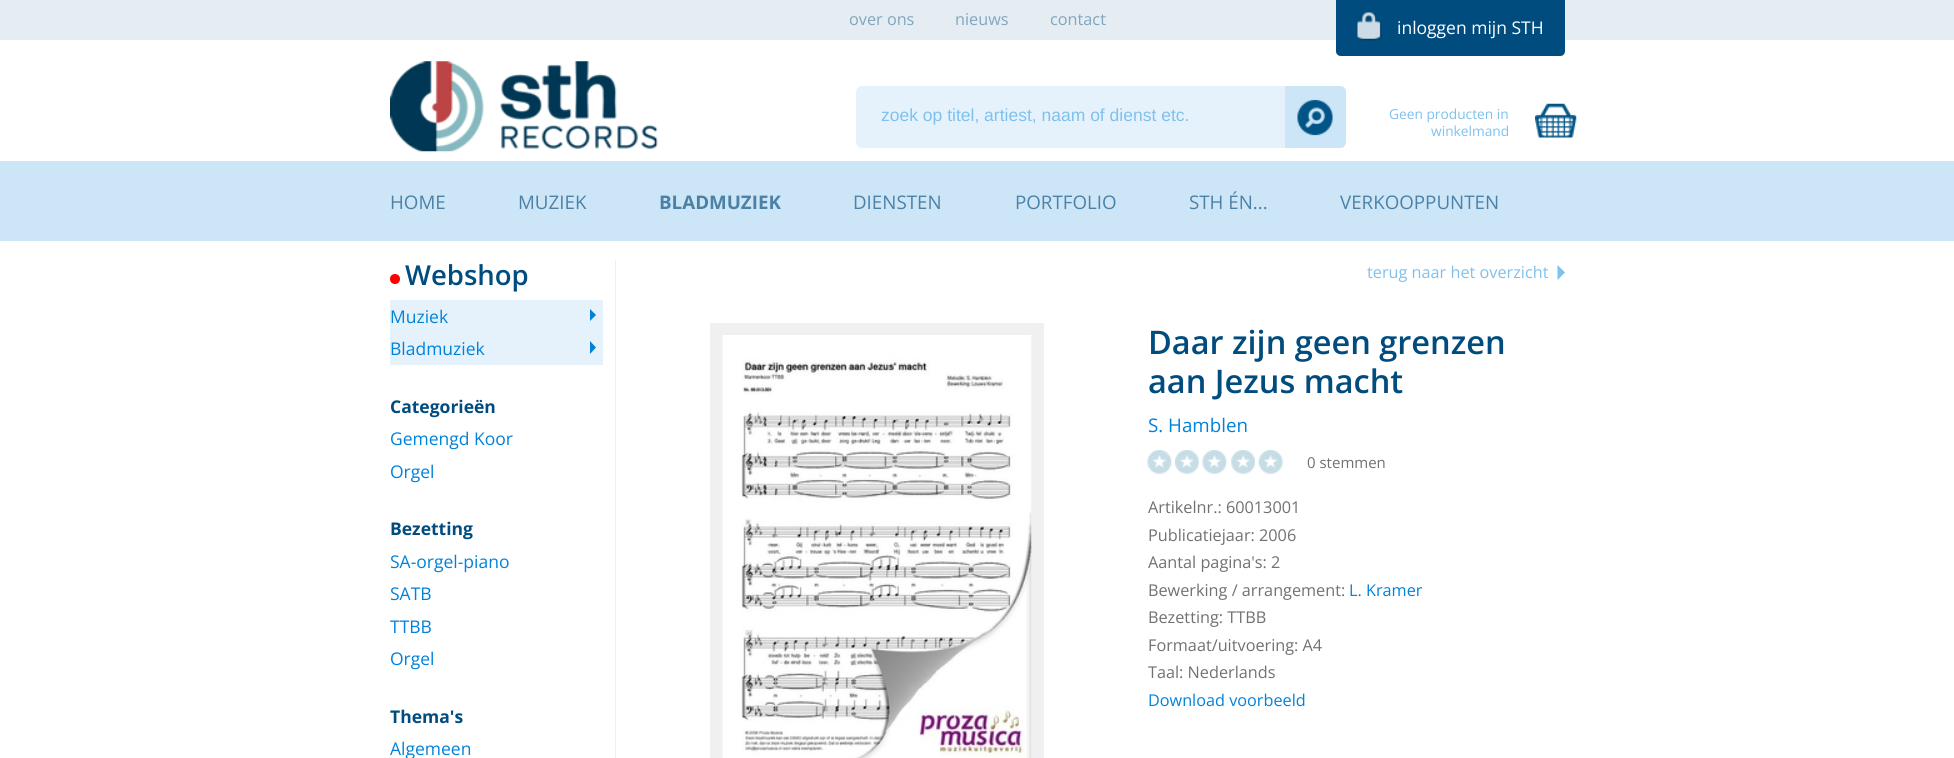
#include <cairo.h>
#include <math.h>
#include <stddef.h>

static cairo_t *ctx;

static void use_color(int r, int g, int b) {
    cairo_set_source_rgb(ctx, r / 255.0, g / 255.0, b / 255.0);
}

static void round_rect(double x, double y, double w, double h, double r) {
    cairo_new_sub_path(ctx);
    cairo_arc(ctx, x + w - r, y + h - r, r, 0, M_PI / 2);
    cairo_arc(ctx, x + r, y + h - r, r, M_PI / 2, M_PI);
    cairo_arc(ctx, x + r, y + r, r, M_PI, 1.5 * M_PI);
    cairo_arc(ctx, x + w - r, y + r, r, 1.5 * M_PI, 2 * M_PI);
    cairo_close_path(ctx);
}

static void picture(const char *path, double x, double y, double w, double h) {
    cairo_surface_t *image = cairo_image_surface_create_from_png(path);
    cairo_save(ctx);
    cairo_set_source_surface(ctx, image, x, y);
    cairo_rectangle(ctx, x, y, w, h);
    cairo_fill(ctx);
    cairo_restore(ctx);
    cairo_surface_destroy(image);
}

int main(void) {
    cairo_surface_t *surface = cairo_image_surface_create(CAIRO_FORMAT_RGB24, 1954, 758);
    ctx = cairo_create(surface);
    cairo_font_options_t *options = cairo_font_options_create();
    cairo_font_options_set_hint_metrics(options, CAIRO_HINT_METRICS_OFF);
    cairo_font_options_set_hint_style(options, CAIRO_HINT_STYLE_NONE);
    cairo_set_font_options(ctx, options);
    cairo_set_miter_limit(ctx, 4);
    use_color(255, 255, 255);
    cairo_paint(ctx);
    use_color(229, 237, 242);
    cairo_rectangle(ctx, 0, 0, 1954, 40);
    cairo_fill(ctx);
    cairo_select_font_face(ctx, "Open Sans", CAIRO_FONT_SLANT_NORMAL, CAIRO_FONT_WEIGHT_NORMAL);
    cairo_set_font_size(ctx, 16.25);
    use_color(127, 165, 191);
    cairo_move_to(ctx, 849, 25);
    cairo_show_text(ctx, "over ons");
    cairo_move_to(ctx, 955, 25);
    cairo_show_text(ctx, "nieuws");
    cairo_move_to(ctx, 1050, 25);
    cairo_show_text(ctx, "contact");
    use_color(0, 76, 127);
    cairo_new_path(ctx);
    cairo_move_to(ctx, 1336, 0);
    cairo_line_to(ctx, 1565, 0);
    cairo_line_to(ctx, 1565, 51);
    cairo_curve_to(ctx, 1565, 54, 1563, 56, 1560, 56);
    cairo_line_to(ctx, 1341, 56);
    cairo_curve_to(ctx, 1338, 56, 1336, 54, 1336, 51);
    cairo_close_path(ctx);
    cairo_fill(ctx);
    picture("img1.png", 1357, 12, 25, 29);
    cairo_set_font_size(ctx, 17.5);
    use_color(255, 255, 255);
    cairo_move_to(ctx, 1397, 34);
    cairo_show_text(ctx, "inloggen mijn STH");
    picture("img2.png", 390, 61, 268, 91);
    use_color(229, 242, 251);
    round_rect(856, 86, 490, 62, 6);
    cairo_fill(ctx);
    cairo_select_font_face(ctx, "Liberation Sans", CAIRO_FONT_SLANT_NORMAL, CAIRO_FONT_WEIGHT_NORMAL);
    use_color(127, 192, 237);
    cairo_move_to(ctx, 881, 121);
    cairo_show_text(ctx, "zoek op titel, artiest, naam of dienst etc.");
    use_color(204, 230, 248);
    cairo_new_path(ctx);
    cairo_move_to(ctx, 1285, 86);
    cairo_line_to(ctx, 1340, 86);
    cairo_curve_to(ctx, 1343.5, 86, 1346, 88.5, 1346, 92);
    cairo_line_to(ctx, 1346, 142);
    cairo_curve_to(ctx, 1346, 145.5, 1343.5, 148, 1340, 148);
    cairo_line_to(ctx, 1285, 148);
    cairo_close_path(ctx);
    cairo_fill(ctx);
    picture("img3.png", 1297, 99, 36, 37);
    cairo_select_font_face(ctx, "Open Sans", CAIRO_FONT_SLANT_NORMAL, CAIRO_FONT_WEIGHT_NORMAL);
    cairo_set_font_size(ctx, 13.75);
    use_color(127, 192, 237);
    cairo_move_to(ctx, 1389, 119);
    cairo_show_text(ctx, "Geen producten in");
    cairo_move_to(ctx, 1431, 136);
    cairo_show_text(ctx, "winkelmand");
    picture("img4.png", 1535, 103, 42, 35);
    use_color(204, 230, 248);
    cairo_rectangle(ctx, 0, 161, 1954, 80);
    cairo_fill(ctx);
    cairo_set_font_size(ctx, 18.75);
    use_color(76, 129, 165);
    cairo_move_to(ctx, 390, 209);
    cairo_show_text(ctx, "HOME");
    cairo_move_to(ctx, 518, 209);
    cairo_show_text(ctx, "MUZIEK");
    cairo_select_font_face(ctx, "Open Sans", CAIRO_FONT_SLANT_NORMAL, CAIRO_FONT_WEIGHT_BOLD);
    cairo_move_to(ctx, 659, 209);
    cairo_show_text(ctx, "BLADMUZIEK");
    cairo_select_font_face(ctx, "Open Sans", CAIRO_FONT_SLANT_NORMAL, CAIRO_FONT_WEIGHT_NORMAL);
    cairo_move_to(ctx, 853, 209);
    cairo_show_text(ctx, "DIENSTEN");
    cairo_move_to(ctx, 1015, 209);
    cairo_show_text(ctx, "PORTFOLIO");
    cairo_move_to(ctx, 1189, 209);
    cairo_show_text(ctx, "STH ÉN...");
    cairo_move_to(ctx, 1340, 209);
    cairo_show_text(ctx, "VERKOOPPUNTEN");
    use_color(229, 242, 251);
    cairo_rectangle(ctx, 615, 260, 1, 498);
    cairo_fill(ctx);
    use_color(255, 0, 0);
    cairo_arc(ctx, 395, 279, 5, 0, 2 * M_PI);
    cairo_fill(ctx);
    cairo_select_font_face(ctx, "Open Sans SemiBold", CAIRO_FONT_SLANT_NORMAL, CAIRO_FONT_WEIGHT_NORMAL);
    cairo_set_font_size(ctx, 27.5);
    use_color(0, 76, 127);
    cairo_move_to(ctx, 405, 285);
    cairo_show_text(ctx, "Webshop");
    use_color(229, 242, 251);
    cairo_rectangle(ctx, 390, 300, 213, 65);
    cairo_fill(ctx);
    cairo_select_font_face(ctx, "Open Sans", CAIRO_FONT_SLANT_NORMAL, CAIRO_FONT_WEIGHT_NORMAL);
    cairo_set_font_size(ctx, 17.5);
    use_color(0, 130, 219);
    cairo_move_to(ctx, 390, 323);
    cairo_show_text(ctx, "Muziek");
    cairo_new_path(ctx);
    cairo_move_to(ctx, 590, 321);
    cairo_line_to(ctx, 590, 309);
    cairo_line_to(ctx, 596, 315);
    cairo_close_path(ctx);
    cairo_fill(ctx);
    cairo_move_to(ctx, 390, 355);
    cairo_show_text(ctx, "Bladmuziek");
    cairo_new_path(ctx);
    cairo_move_to(ctx, 590, 354);
    cairo_line_to(ctx, 590, 341);
    cairo_line_to(ctx, 596, 347.5);
    cairo_close_path(ctx);
    cairo_fill(ctx);
    cairo_select_font_face(ctx, "Open Sans", CAIRO_FONT_SLANT_NORMAL, CAIRO_FONT_WEIGHT_BOLD);
    use_color(0, 76, 127);
    cairo_move_to(ctx, 390, 413);
    cairo_show_text(ctx, "Categorieën");
    cairo_select_font_face(ctx, "Open Sans", CAIRO_FONT_SLANT_NORMAL, CAIRO_FONT_WEIGHT_NORMAL);
    use_color(0, 130, 219);
    cairo_move_to(ctx, 390, 445);
    cairo_show_text(ctx, "Gemengd Koor");
    cairo_move_to(ctx, 390, 478);
    cairo_show_text(ctx, "Orgel");
    cairo_select_font_face(ctx, "Open Sans", CAIRO_FONT_SLANT_NORMAL, CAIRO_FONT_WEIGHT_BOLD);
    use_color(0, 76, 127);
    cairo_move_to(ctx, 390, 535);
    cairo_show_text(ctx, "Bezetting");
    cairo_select_font_face(ctx, "Open Sans", CAIRO_FONT_SLANT_NORMAL, CAIRO_FONT_WEIGHT_NORMAL);
    use_color(0, 130, 219);
    cairo_move_to(ctx, 390, 568);
    cairo_show_text(ctx, "SA-orgel-piano");
    cairo_move_to(ctx, 390, 600);
    cairo_show_text(ctx, "SATB");
    cairo_move_to(ctx, 390, 633);
    cairo_show_text(ctx, "TTBB");
    cairo_move_to(ctx, 390, 665);
    cairo_show_text(ctx, "Orgel");
    cairo_select_font_face(ctx, "Open Sans", CAIRO_FONT_SLANT_NORMAL, CAIRO_FONT_WEIGHT_BOLD);
    use_color(0, 76, 127);
    cairo_move_to(ctx, 390, 723);
    cairo_show_text(ctx, "Thema's");
    cairo_select_font_face(ctx, "Open Sans", CAIRO_FONT_SLANT_NORMAL, CAIRO_FONT_WEIGHT_NORMAL);
    use_color(0, 130, 219);
    cairo_move_to(ctx, 390, 755);
    cairo_show_text(ctx, "Algemeen");
    cairo_set_font_size(ctx, 16.25);
    use_color(127, 192, 237);
    cairo_move_to(ctx, 1367, 278);
    cairo_show_text(ctx, "terug naar het overzicht");
    cairo_new_path(ctx);
    cairo_move_to(ctx, 1557.5, 280);
    cairo_line_to(ctx, 1557.5, 265);
    cairo_line_to(ctx, 1565, 272.5);
    cairo_close_path(ctx);
    cairo_fill(ctx);
    use_color(240, 240, 240);
    cairo_rectangle(ctx, 710, 323, 334, 435);
    cairo_fill(ctx);
    picture("img5.png", 722, 335, 310, 423);
    cairo_select_font_face(ctx, "Open Sans SemiBold", CAIRO_FONT_SLANT_NORMAL, CAIRO_FONT_WEIGHT_NORMAL);
    cairo_set_font_size(ctx, 32.5);
    use_color(0, 76, 127);
    cairo_move_to(ctx, 1148, 354);
    cairo_show_text(ctx, "Daar zijn geen grenzen");
    cairo_move_to(ctx, 1148, 393);
    cairo_show_text(ctx, "aan Jezus macht");
    cairo_select_font_face(ctx, "Open Sans", CAIRO_FONT_SLANT_NORMAL, CAIRO_FONT_WEIGHT_NORMAL);
    cairo_set_font_size(ctx, 18.75);
    use_color(0, 130, 219);
    cairo_move_to(ctx, 1148, 432);
    cairo_show_text(ctx, "S. Hamblen");
    picture("img6.png", 1147, 450, 25, 24);
    picture("img7.png", 1175, 450, 24, 24);
    picture("img8.png", 1202, 450, 25, 24);
    picture("img9.png", 1231, 450, 24, 24);
    picture("img10.png", 1258, 450, 25, 24);
    cairo_set_font_size(ctx, 15);
    use_color(113, 113, 113);
    cairo_move_to(ctx, 1307, 468);
    cairo_show_text(ctx, "0 stemmen");
    cairo_set_font_size(ctx, 16.25);
    cairo_move_to(ctx, 1148, 513);
    cairo_show_text(ctx, "Artikelnr.: 60013001");
    cairo_move_to(ctx, 1148, 541);
    cairo_show_text(ctx, "Publicatiejaar: 2006");
    cairo_move_to(ctx, 1148, 568);
    cairo_show_text(ctx, "Aantal pagina's: 2");
    cairo_move_to(ctx, 1148, 596);
    cairo_show_text(ctx, "Bewerking / arrangement:");
    use_color(0, 130, 219);
    cairo_move_to(ctx, 1349, 596);
    cairo_show_text(ctx, "L. Kramer");
    use_color(113, 113, 113);
    cairo_move_to(ctx, 1148, 623);
    cairo_show_text(ctx, "Bezetting: TTBB");
    cairo_move_to(ctx, 1148, 651);
    cairo_show_text(ctx, "Formaat/uitvoering: A4");
    cairo_move_to(ctx, 1148, 678);
    cairo_show_text(ctx, "Taal: Nederlands");
    use_color(0, 130, 219);
    cairo_move_to(ctx, 1148, 706);
    cairo_show_text(ctx, "Download voorbeeld");
    cairo_surface_write_to_png(surface, "result.png");
    cairo_font_options_destroy(options);
    cairo_destroy(ctx);
    cairo_surface_destroy(surface);
    return 0;
}
